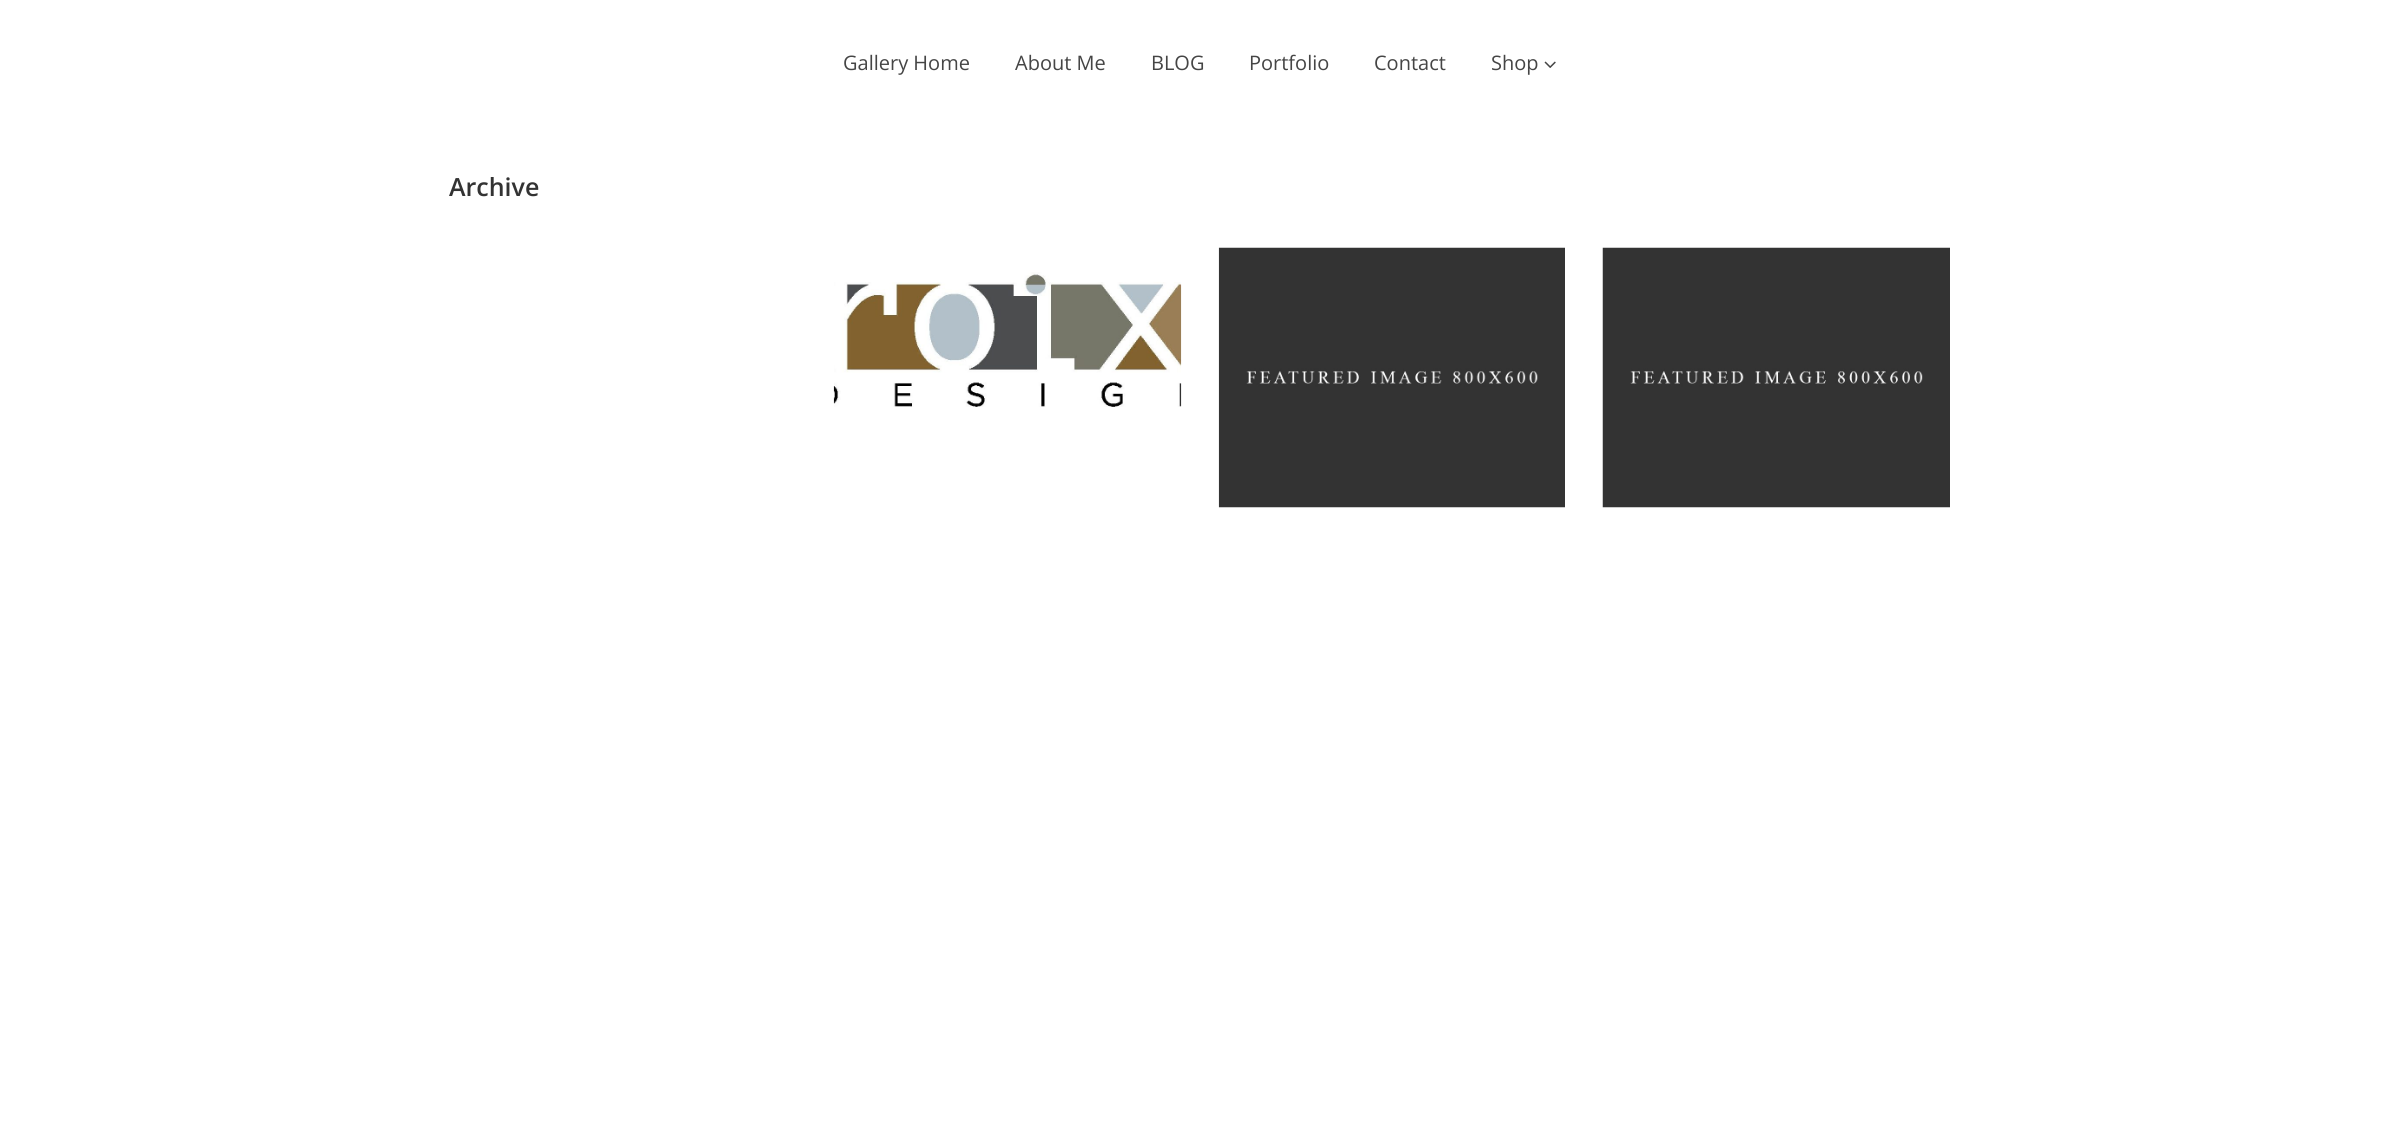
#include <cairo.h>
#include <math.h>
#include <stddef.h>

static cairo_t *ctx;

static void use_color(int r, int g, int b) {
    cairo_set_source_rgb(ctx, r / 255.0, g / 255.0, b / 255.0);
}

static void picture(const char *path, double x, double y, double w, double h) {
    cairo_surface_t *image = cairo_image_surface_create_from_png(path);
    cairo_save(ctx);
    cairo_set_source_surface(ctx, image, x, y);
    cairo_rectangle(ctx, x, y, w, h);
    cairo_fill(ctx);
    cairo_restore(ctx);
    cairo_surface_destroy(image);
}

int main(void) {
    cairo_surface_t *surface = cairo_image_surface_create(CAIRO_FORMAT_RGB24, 2398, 1134);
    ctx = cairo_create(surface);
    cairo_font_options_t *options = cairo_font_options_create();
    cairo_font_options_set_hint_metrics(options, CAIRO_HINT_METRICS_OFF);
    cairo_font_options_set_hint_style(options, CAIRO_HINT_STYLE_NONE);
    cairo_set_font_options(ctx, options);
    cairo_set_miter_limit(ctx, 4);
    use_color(255, 255, 255);
    cairo_paint(ctx);
    cairo_select_font_face(ctx, "Open Sans", CAIRO_FONT_SLANT_NORMAL, CAIRO_FONT_WEIGHT_NORMAL);
    cairo_set_font_size(ctx, 20);
    use_color(69, 69, 69);
    cairo_move_to(ctx, 843, 70);
    cairo_show_text(ctx, "Gallery Home");
    cairo_move_to(ctx, 1015, 70);
    cairo_show_text(ctx, "About Me");
    cairo_move_to(ctx, 1151, 70);
    cairo_show_text(ctx, "BLOG");
    cairo_move_to(ctx, 1249, 70);
    cairo_show_text(ctx, "Portfolio");
    cairo_move_to(ctx, 1374, 70);
    cairo_show_text(ctx, "Contact");
    cairo_move_to(ctx, 1491, 70);
    cairo_show_text(ctx, "Shop");
    picture("img1.png", 1544, 61, 12, 7);
    cairo_select_font_face(ctx, "Open Sans SemiBold", CAIRO_FONT_SLANT_NORMAL, CAIRO_FONT_WEIGHT_NORMAL);
    cairo_set_font_size(ctx, 25);
    use_color(51, 51, 51);
    cairo_move_to(ctx, 449, 196);
    cairo_show_text(ctx, "Archive");
    picture("img2.png", 833, 272, 349, 135);
    picture("img3.png", 1218, 247, 347, 261);
    picture("img4.png", 1602, 247, 348, 261);
    cairo_surface_write_to_png(surface, "result.png");
    cairo_font_options_destroy(options);
    cairo_destroy(ctx);
    cairo_surface_destroy(surface);
    return 0;
}
